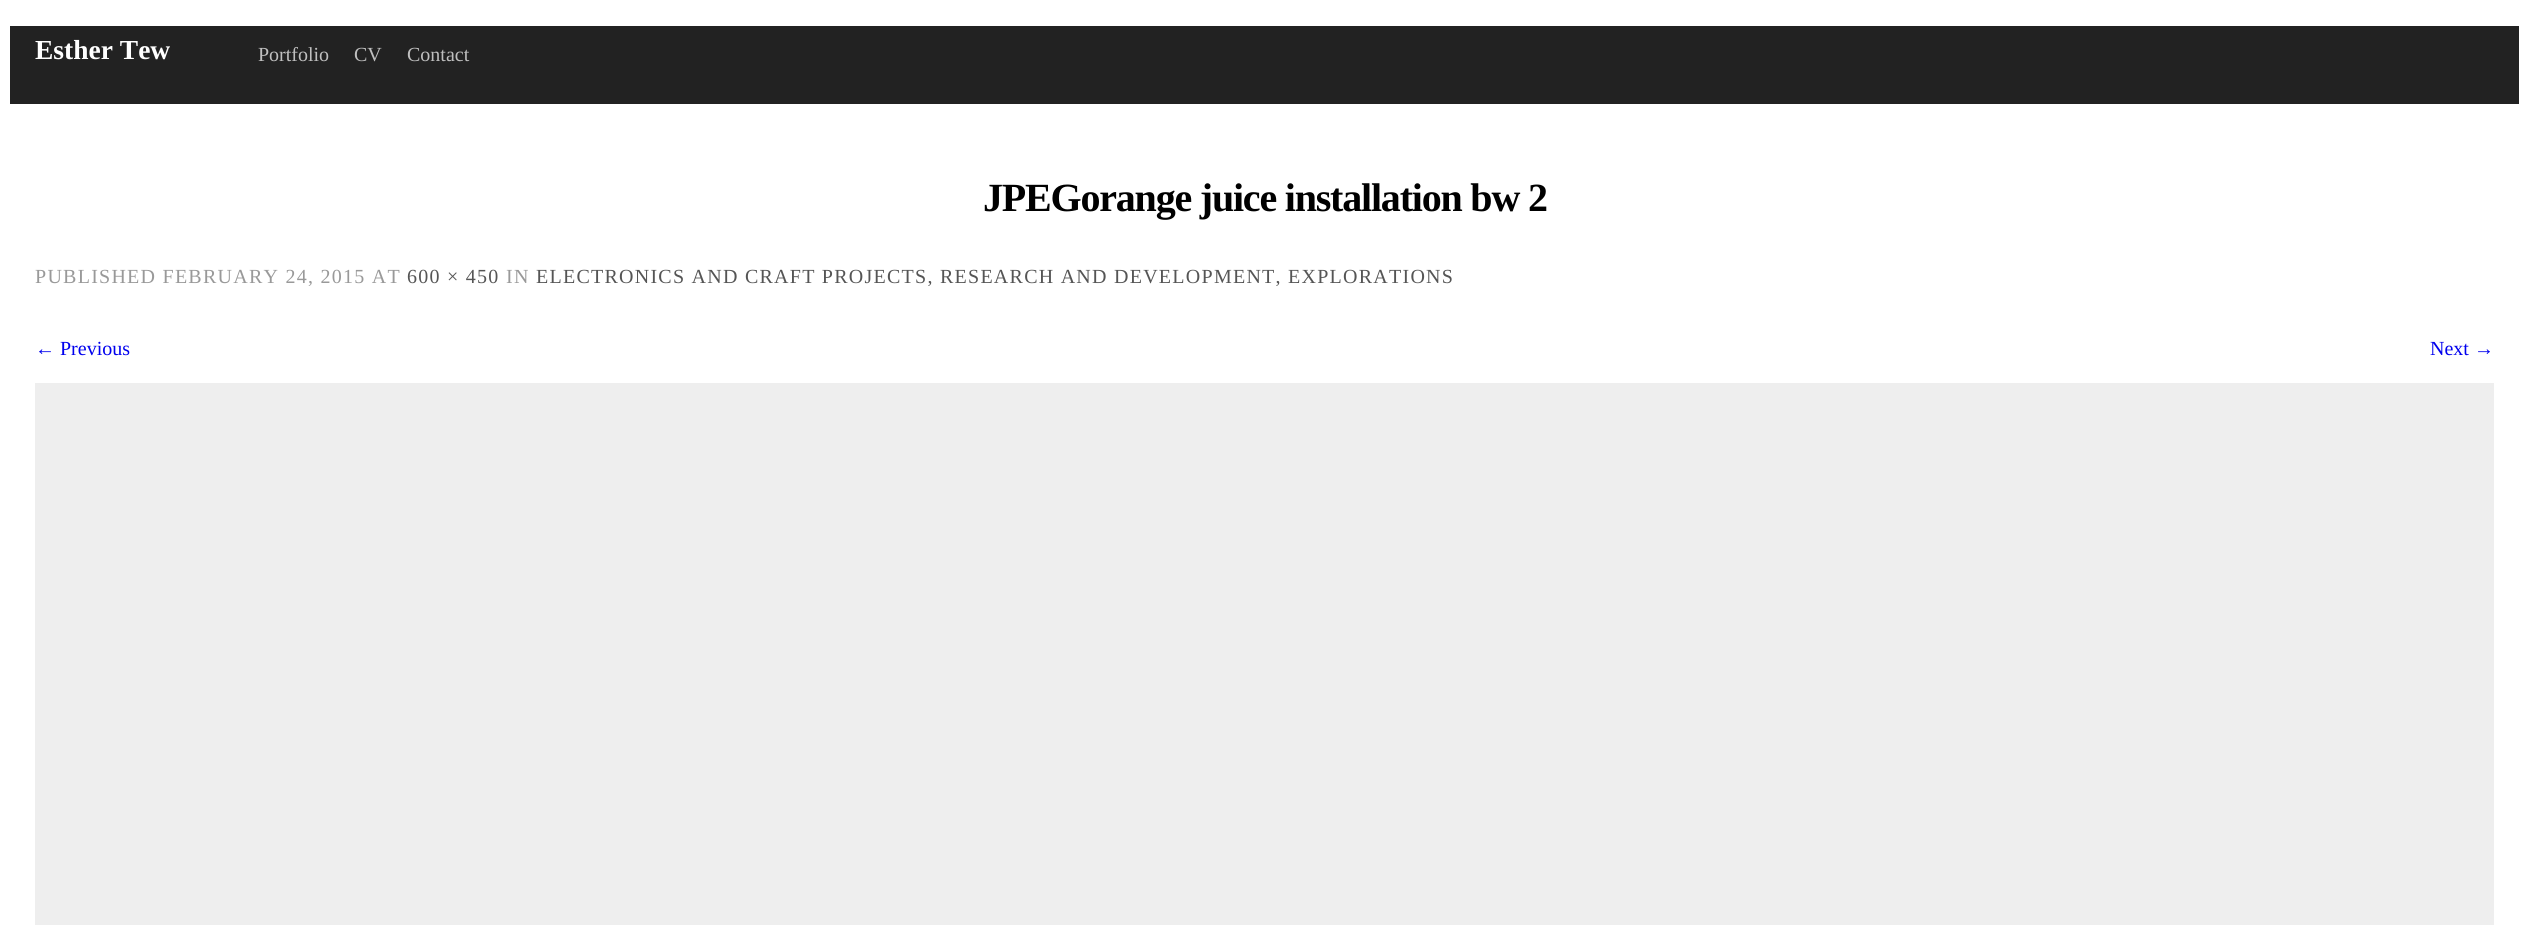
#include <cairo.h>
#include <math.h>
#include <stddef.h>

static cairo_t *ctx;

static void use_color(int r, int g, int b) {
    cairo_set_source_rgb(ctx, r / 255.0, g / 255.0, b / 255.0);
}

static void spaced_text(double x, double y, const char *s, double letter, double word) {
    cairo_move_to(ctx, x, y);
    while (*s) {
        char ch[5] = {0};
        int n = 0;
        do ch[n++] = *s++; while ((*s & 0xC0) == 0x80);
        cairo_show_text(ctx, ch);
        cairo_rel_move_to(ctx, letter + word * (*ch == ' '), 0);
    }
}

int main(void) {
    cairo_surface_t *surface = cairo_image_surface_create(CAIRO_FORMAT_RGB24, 2528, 925);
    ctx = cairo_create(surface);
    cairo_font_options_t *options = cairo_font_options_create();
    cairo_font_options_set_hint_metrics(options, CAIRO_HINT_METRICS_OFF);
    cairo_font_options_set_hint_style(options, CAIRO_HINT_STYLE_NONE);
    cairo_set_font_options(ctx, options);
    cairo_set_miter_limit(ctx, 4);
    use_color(255, 255, 255);
    cairo_paint(ctx);
    use_color(34, 34, 34);
    cairo_rectangle(ctx, 10, 26, 2509, 78);
    cairo_fill(ctx);
    cairo_select_font_face(ctx, "Liberation Serif", CAIRO_FONT_SLANT_NORMAL, CAIRO_FONT_WEIGHT_BOLD);
    cairo_set_font_size(ctx, 27.5);
    use_color(255, 255, 255);
    cairo_move_to(ctx, 35, 59);
    cairo_show_text(ctx, "Esther Tew");
    cairo_select_font_face(ctx, "Liberation Serif", CAIRO_FONT_SLANT_NORMAL, CAIRO_FONT_WEIGHT_NORMAL);
    cairo_set_font_size(ctx, 20);
    use_color(191, 191, 191);
    cairo_move_to(ctx, 258, 61);
    cairo_show_text(ctx, "Portfolio");
    cairo_move_to(ctx, 354, 61);
    cairo_show_text(ctx, "CV");
    cairo_move_to(ctx, 407, 61);
    cairo_show_text(ctx, "Contact");
    cairo_select_font_face(ctx, "Liberation Serif", CAIRO_FONT_SLANT_NORMAL, CAIRO_FONT_WEIGHT_BOLD);
    cairo_set_font_size(ctx, 40);
    use_color(0, 0, 0);
    spaced_text(983, 211, "JPEGorange juice installation bw 2", -1.2, 0);
    cairo_select_font_face(ctx, "Liberation Serif", CAIRO_FONT_SLANT_NORMAL, CAIRO_FONT_WEIGHT_NORMAL);
    cairo_set_font_size(ctx, 20);
    use_color(153, 153, 153);
    spaced_text(35, 283, "PUBLISHED FEBRUARY 24, 2015 AT", 1.25, 0);
    use_color(85, 85, 85);
    spaced_text(407, 283, "600 × 450", 1.25, 0);
    use_color(153, 153, 153);
    spaced_text(506, 283, "IN", 1.25, 0);
    use_color(85, 85, 85);
    spaced_text(536, 283, "ELECTRONICS AND CRAFT PROJECTS, RESEARCH AND DEVELOPMENT, EXPLORATIONS", 1.25, 0);
    use_color(0, 0, 238);
    cairo_move_to(ctx, 35, 355);
    cairo_show_text(ctx, "← Previous");
    cairo_move_to(ctx, 2430, 355);
    cairo_show_text(ctx, "Next →");
    use_color(238, 238, 238);
    cairo_rectangle(ctx, 35, 383, 2459, 542);
    cairo_fill(ctx);
    cairo_surface_write_to_png(surface, "result.png");
    cairo_font_options_destroy(options);
    cairo_destroy(ctx);
    cairo_surface_destroy(surface);
    return 0;
}
